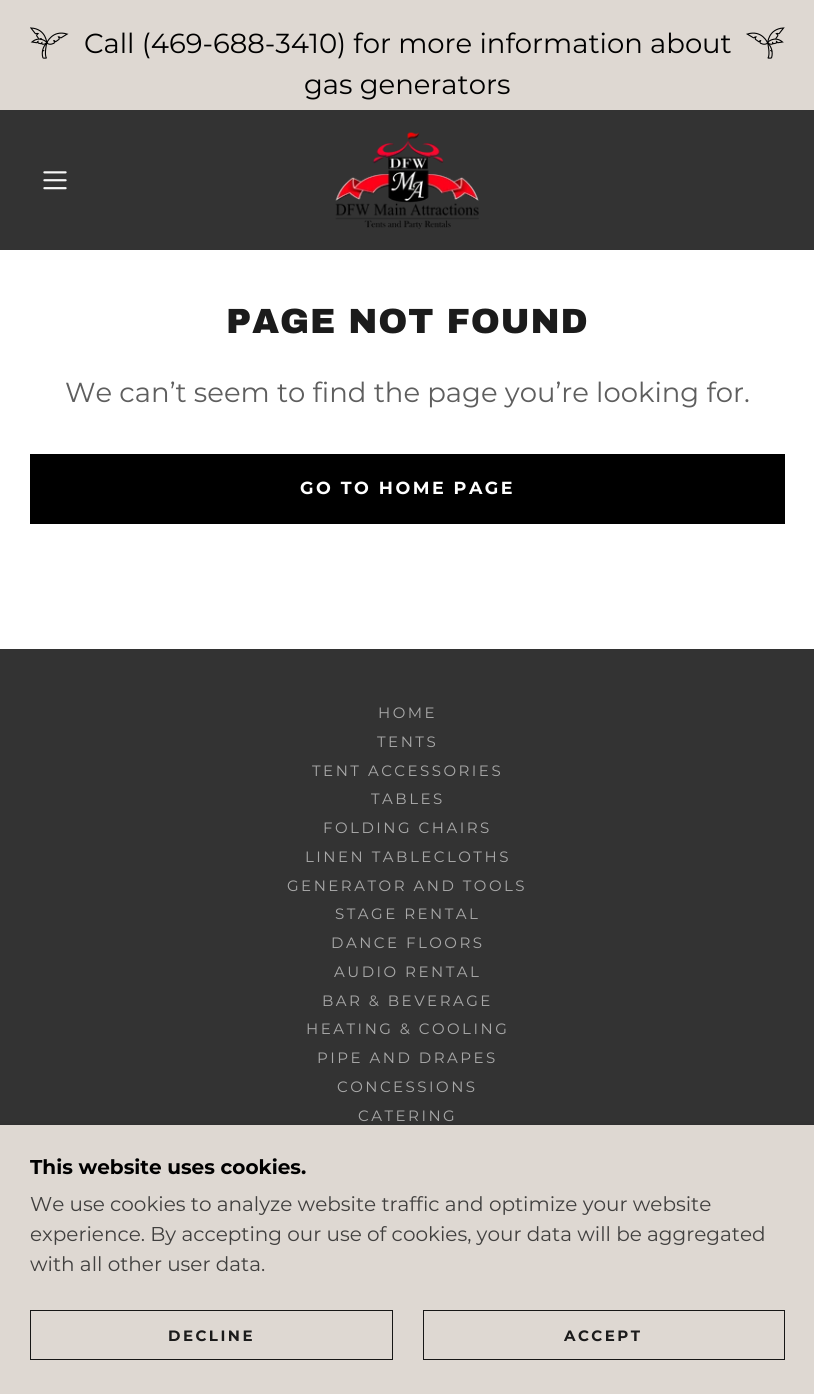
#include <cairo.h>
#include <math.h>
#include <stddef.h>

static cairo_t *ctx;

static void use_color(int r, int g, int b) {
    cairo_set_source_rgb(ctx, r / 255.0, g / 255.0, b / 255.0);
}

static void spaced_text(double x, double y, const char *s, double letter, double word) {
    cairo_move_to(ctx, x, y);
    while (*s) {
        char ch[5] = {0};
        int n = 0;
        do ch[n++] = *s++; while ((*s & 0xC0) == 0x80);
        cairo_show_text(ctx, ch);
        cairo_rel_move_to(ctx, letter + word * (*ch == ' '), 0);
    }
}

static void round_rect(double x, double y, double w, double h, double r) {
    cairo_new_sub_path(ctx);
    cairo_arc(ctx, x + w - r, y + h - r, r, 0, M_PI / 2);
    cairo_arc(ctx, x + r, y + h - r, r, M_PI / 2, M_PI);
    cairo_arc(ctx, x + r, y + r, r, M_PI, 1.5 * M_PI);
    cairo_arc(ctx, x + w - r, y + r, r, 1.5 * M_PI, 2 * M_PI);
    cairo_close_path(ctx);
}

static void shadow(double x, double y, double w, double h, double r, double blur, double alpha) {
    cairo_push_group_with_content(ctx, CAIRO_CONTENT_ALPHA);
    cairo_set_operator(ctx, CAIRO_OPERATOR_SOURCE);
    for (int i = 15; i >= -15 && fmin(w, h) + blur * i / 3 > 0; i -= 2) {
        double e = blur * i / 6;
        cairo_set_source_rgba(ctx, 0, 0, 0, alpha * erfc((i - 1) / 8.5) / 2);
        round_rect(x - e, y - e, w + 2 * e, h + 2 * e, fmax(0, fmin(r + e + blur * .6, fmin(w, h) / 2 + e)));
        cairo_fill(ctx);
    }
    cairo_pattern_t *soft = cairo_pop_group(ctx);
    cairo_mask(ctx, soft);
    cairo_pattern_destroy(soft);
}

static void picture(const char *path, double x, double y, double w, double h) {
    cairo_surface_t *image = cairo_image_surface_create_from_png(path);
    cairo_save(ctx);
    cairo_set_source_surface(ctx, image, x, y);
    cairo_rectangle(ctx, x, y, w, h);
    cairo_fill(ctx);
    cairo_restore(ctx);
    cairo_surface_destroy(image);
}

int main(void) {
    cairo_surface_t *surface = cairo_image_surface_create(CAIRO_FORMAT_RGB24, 814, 1394);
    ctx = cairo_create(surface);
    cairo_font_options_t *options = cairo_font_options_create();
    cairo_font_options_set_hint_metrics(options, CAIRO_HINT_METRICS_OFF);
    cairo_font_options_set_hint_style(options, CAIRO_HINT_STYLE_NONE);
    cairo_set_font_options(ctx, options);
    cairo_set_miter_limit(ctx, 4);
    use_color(51, 51, 51);
    cairo_paint(ctx);
    use_color(222, 216, 210);
    cairo_rectangle(ctx, 0, 0, 814, 110);
    cairo_fill(ctx);
    picture("img1.png", 30, 27, 39, 32);
    cairo_select_font_face(ctx, "Montserrat", CAIRO_FONT_SLANT_NORMAL, CAIRO_FONT_WEIGHT_NORMAL);
    cairo_set_font_size(ctx, 27.5);
    use_color(0, 0, 0);
    cairo_move_to(ctx, 84, 53);
    cairo_show_text(ctx, "Call (469-688-3410) for more information about");
    cairo_move_to(ctx, 304, 94);
    cairo_show_text(ctx, "gas generators");
    picture("img2.png", 746, 27, 39, 32);
    picture("img3.png", 43, 171, 24, 19);
    picture("img4.png", 335, 132, 144, 97);
    use_color(255, 255, 255);
    cairo_rectangle(ctx, 0, 250, 814, 399);
    cairo_fill(ctx);
    cairo_select_font_face(ctx, "Archivo Black Black", CAIRO_FONT_SLANT_NORMAL, CAIRO_FONT_WEIGHT_NORMAL);
    cairo_set_font_size(ctx, 35);
    use_color(27, 27, 27);
    spaced_text(226, 333, "PAGE NOT FOUND", 0.75, 0);
    cairo_select_font_face(ctx, "Montserrat", CAIRO_FONT_SLANT_NORMAL, CAIRO_FONT_WEIGHT_NORMAL);
    cairo_set_font_size(ctx, 27.5);
    use_color(94, 94, 94);
    cairo_move_to(ctx, 65, 402);
    cairo_show_text(ctx, "We can’t seem to find the page you’re looking for.");
    use_color(0, 0, 0);
    cairo_rectangle(ctx, 30, 454, 755, 70);
    cairo_fill(ctx);
    cairo_select_font_face(ctx, "Montserrat", CAIRO_FONT_SLANT_NORMAL, CAIRO_FONT_WEIGHT_BOLD);
    cairo_set_font_size(ctx, 17.5);
    use_color(255, 255, 255);
    spaced_text(300, 494, "GO TO HOME PAGE", 2.5, 0);
    cairo_select_font_face(ctx, "Montserrat", CAIRO_FONT_SLANT_NORMAL, CAIRO_FONT_WEIGHT_NORMAL);
    cairo_set_font_size(ctx, 15);
    use_color(169, 169, 169);
    spaced_text(378, 718, "HOME", 2.5, 0);
    spaced_text(377, 747, "TENTS", 2.5, 0);
    spaced_text(312, 776, "TENT ACCESSORIES", 2.5, 0);
    spaced_text(371, 804, "TABLES", 2.5, 0);
    spaced_text(323, 833, "FOLDING CHAIRS", 2.5, 0);
    spaced_text(305, 862, "LINEN TABLECLOTHS", 2.5, 0);
    spaced_text(287, 891, "GENERATOR AND TOOLS", 2.5, 0);
    spaced_text(335, 919, "STAGE RENTAL", 2.5, 0);
    spaced_text(331, 948, "DANCE FLOORS", 2.5, 0);
    spaced_text(334, 977, "AUDIO RENTAL", 2.5, 0);
    spaced_text(322, 1006, "BAR & BEVERAGE", 2.5, 0);
    spaced_text(306, 1034, "HEATING & COOLING", 2.5, 0);
    spaced_text(317, 1063, "PIPE AND DRAPES", 2.5, 0);
    spaced_text(337, 1092, "CONCESSIONS", 2.5, 0);
    spaced_text(358, 1121, "CATERING", 2.5, 0);
    use_color(0, 0, 0);
    shadow(0, 1128, 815, 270, 0, 4, 0.3);
    use_color(222, 216, 210);
    cairo_rectangle(ctx, 0, 1125, 814, 269);
    cairo_fill(ctx);
    cairo_select_font_face(ctx, "Montserrat", CAIRO_FONT_SLANT_NORMAL, CAIRO_FONT_WEIGHT_BOLD);
    cairo_set_font_size(ctx, 20);
    use_color(0, 0, 0);
    cairo_move_to(ctx, 30, 1174);
    cairo_show_text(ctx, "This website uses cookies.");
    cairo_select_font_face(ctx, "Montserrat", CAIRO_FONT_SLANT_NORMAL, CAIRO_FONT_WEIGHT_NORMAL);
    use_color(64, 63, 62);
    cairo_move_to(ctx, 30, 1211);
    cairo_show_text(ctx, "We use cookies to analyze website traffic and optimize your website");
    cairo_move_to(ctx, 30, 1241);
    cairo_show_text(ctx, "experience. By accepting our use of cookies, your data will be aggregated");
    cairo_move_to(ctx, 30, 1271);
    cairo_show_text(ctx, "with all other user data.");
    cairo_rectangle(ctx, 30.5, 1310.5, 362, 49);
    use_color(22, 22, 22);
    cairo_set_line_width(ctx, 1);
    cairo_stroke(ctx);
    cairo_select_font_face(ctx, "Montserrat", CAIRO_FONT_SLANT_NORMAL, CAIRO_FONT_WEIGHT_BOLD);
    cairo_set_font_size(ctx, 15);
    use_color(27, 27, 27);
    spaced_text(168, 1341, "DECLINE", 2.5, 0);
    cairo_rectangle(ctx, 423.5, 1310.5, 361, 49);
    use_color(22, 22, 22);
    cairo_stroke(ctx);
    use_color(27, 27, 27);
    spaced_text(564, 1341, "ACCEPT", 2.5, 0);
    cairo_surface_write_to_png(surface, "result.png");
    cairo_font_options_destroy(options);
    cairo_destroy(ctx);
    cairo_surface_destroy(surface);
    return 0;
}
